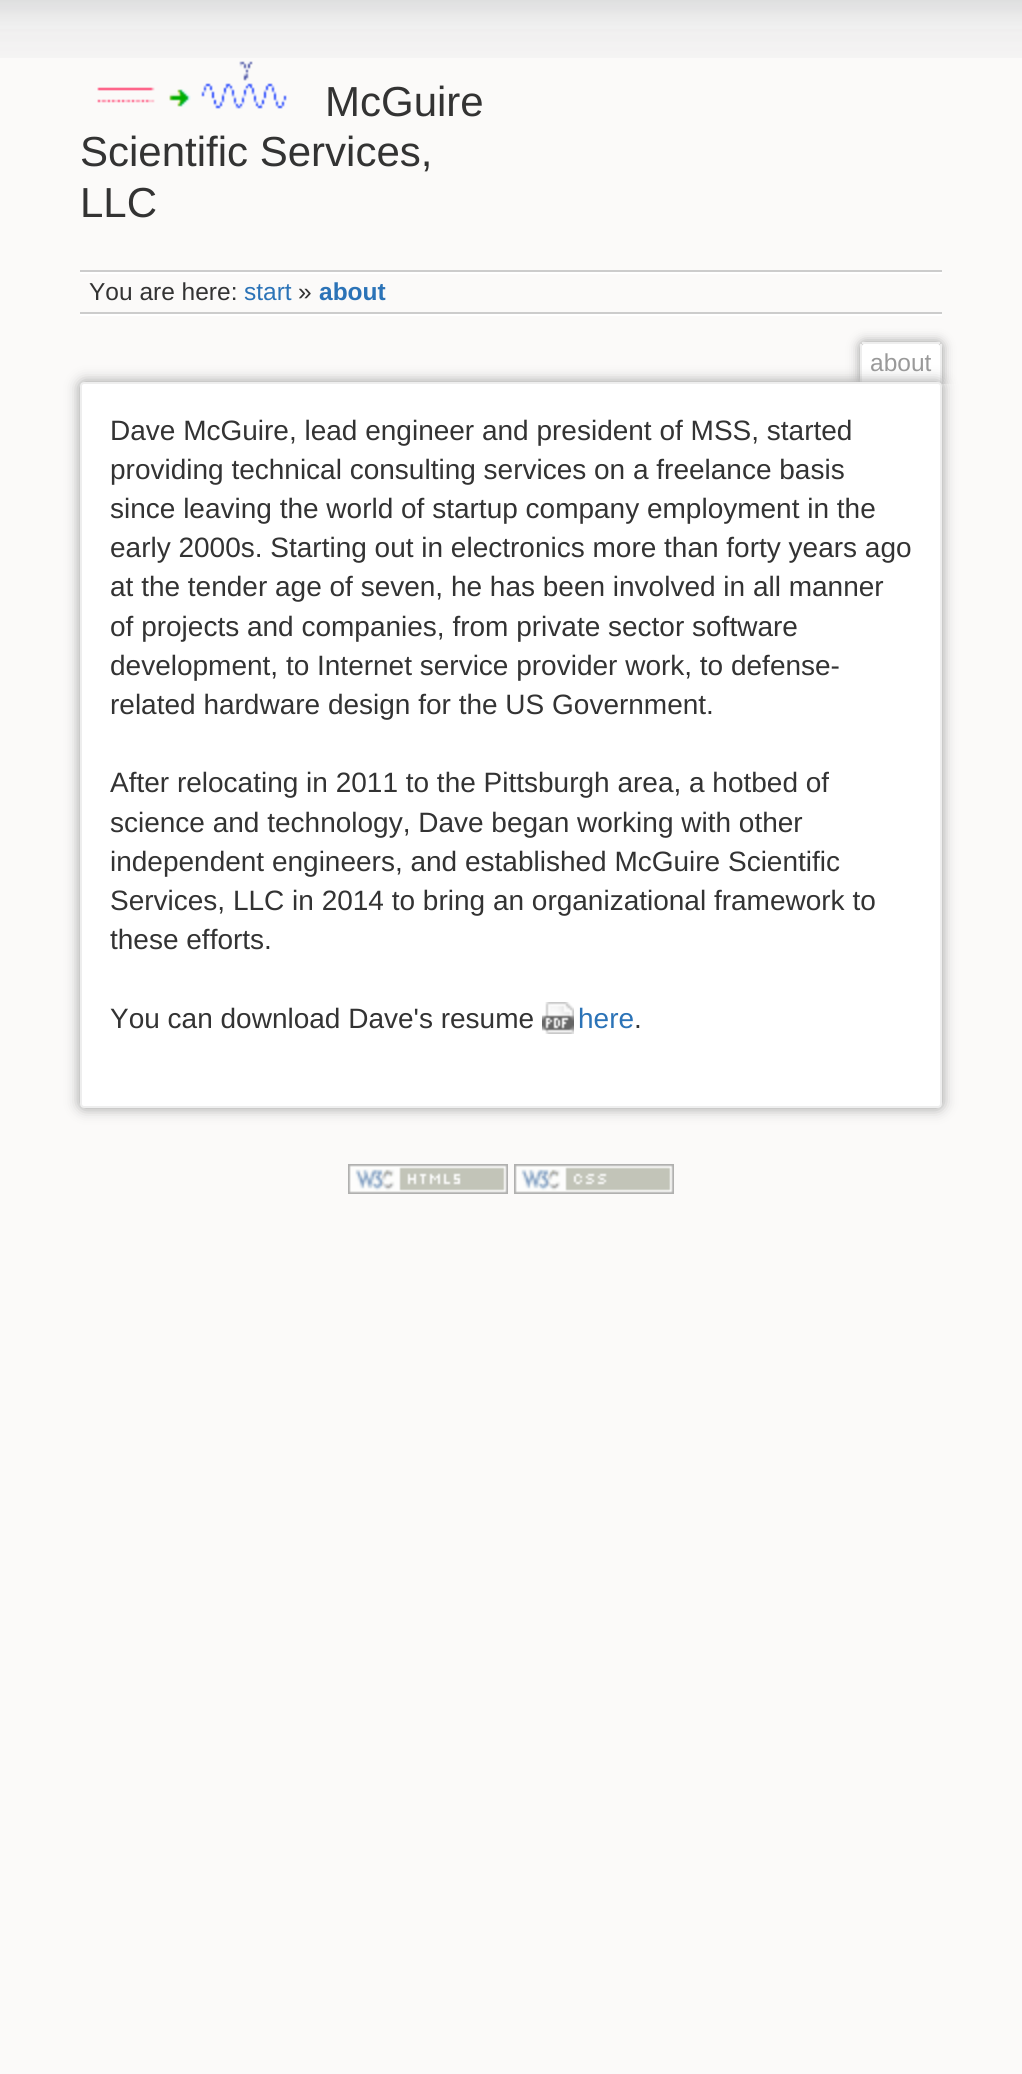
#include <cairo.h>
#include <math.h>
#include <stddef.h>

static cairo_t *ctx;

static void use_color(int r, int g, int b) {
    cairo_set_source_rgb(ctx, r / 255.0, g / 255.0, b / 255.0);
}

static void round_rect(double x, double y, double w, double h, double r) {
    cairo_new_sub_path(ctx);
    cairo_arc(ctx, x + w - r, y + h - r, r, 0, M_PI / 2);
    cairo_arc(ctx, x + r, y + h - r, r, M_PI / 2, M_PI);
    cairo_arc(ctx, x + r, y + r, r, M_PI, 1.5 * M_PI);
    cairo_arc(ctx, x + w - r, y + r, r, 1.5 * M_PI, 2 * M_PI);
    cairo_close_path(ctx);
}

static void shadow(double x, double y, double w, double h, double r, double blur, double alpha) {
    cairo_push_group_with_content(ctx, CAIRO_CONTENT_ALPHA);
    cairo_set_operator(ctx, CAIRO_OPERATOR_SOURCE);
    for (int i = 15; i >= -15 && fmin(w, h) + blur * i / 3 > 0; i -= 2) {
        double e = blur * i / 6;
        cairo_set_source_rgba(ctx, 0, 0, 0, alpha * erfc((i - 1) / 8.5) / 2);
        round_rect(x - e, y - e, w + 2 * e, h + 2 * e, fmax(0, fmin(r + e + blur * .6, fmin(w, h) / 2 + e)));
        cairo_fill(ctx);
    }
    cairo_pattern_t *soft = cairo_pop_group(ctx);
    cairo_mask(ctx, soft);
    cairo_pattern_destroy(soft);
}

static void picture(const char *path, double x, double y, double w, double h) {
    cairo_surface_t *image = cairo_image_surface_create_from_png(path);
    cairo_save(ctx);
    cairo_set_source_surface(ctx, image, x, y);
    cairo_rectangle(ctx, x, y, w, h);
    cairo_fill(ctx);
    cairo_restore(ctx);
    cairo_surface_destroy(image);
}

int main(void) {
    cairo_surface_t *surface = cairo_image_surface_create(CAIRO_FORMAT_RGB24, 1022, 2074);
    ctx = cairo_create(surface);
    cairo_font_options_t *options = cairo_font_options_create();
    cairo_font_options_set_hint_metrics(options, CAIRO_HINT_METRICS_OFF);
    cairo_font_options_set_hint_style(options, CAIRO_HINT_STYLE_NONE);
    cairo_set_font_options(ctx, options);
    cairo_set_miter_limit(ctx, 4);
    use_color(251, 250, 249);
    cairo_paint(ctx);
    picture("img1.png", 0, 0, 1022, 58);
    picture("img2.png", 97, 61, 190, 48);
    cairo_select_font_face(ctx, "Liberation Sans", CAIRO_FONT_SLANT_NORMAL, CAIRO_FONT_WEIGHT_NORMAL);
    cairo_set_font_size(ctx, 42);
    use_color(51, 51, 51);
    cairo_move_to(ctx, 325, 116);
    cairo_show_text(ctx, "McGuire");
    cairo_move_to(ctx, 80, 166);
    cairo_show_text(ctx, "Scientific Services,");
    cairo_move_to(ctx, 80, 217);
    cairo_show_text(ctx, "LLC");
    use_color(204, 204, 204);
    cairo_rectangle(ctx, 80, 270, 862, 2);
    cairo_fill(ctx);
    use_color(255, 255, 255);
    cairo_rectangle(ctx, 80, 314, 862, 2);
    cairo_fill(ctx);
    cairo_rectangle(ctx, 80, 272, 862, 2);
    cairo_fill(ctx);
    use_color(204, 204, 204);
    cairo_rectangle(ctx, 80, 312, 862, 2);
    cairo_fill(ctx);
    cairo_set_font_size(ctx, 24.5);
    use_color(51, 51, 51);
    cairo_move_to(ctx, 89, 300);
    cairo_show_text(ctx, "You are here:");
    use_color(43, 115, 183);
    cairo_move_to(ctx, 244, 300);
    cairo_show_text(ctx, "start");
    use_color(51, 51, 51);
    cairo_move_to(ctx, 298, 300);
    cairo_show_text(ctx, "»");
    cairo_select_font_face(ctx, "Liberation Sans", CAIRO_FONT_SLANT_NORMAL, CAIRO_FONT_WEIGHT_BOLD);
    use_color(43, 115, 183);
    cairo_move_to(ctx, 319, 300);
    cairo_show_text(ctx, "about");
    cairo_save(ctx);
    cairo_rectangle(ctx, 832, 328, 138, 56);
    cairo_clip(ctx);
    use_color(153, 153, 153);
    shadow(860, 342, 82, 42, 4, 6, 1);
    cairo_restore(ctx);
    use_color(255, 255, 255);
    cairo_new_path(ctx);
    cairo_move_to(ctx, 864, 344);
    cairo_line_to(ctx, 938, 344);
    cairo_curve_to(ctx, 939, 344, 940, 345, 940, 346);
    cairo_line_to(ctx, 940, 384);
    cairo_line_to(ctx, 862, 384);
    cairo_line_to(ctx, 862, 346);
    cairo_curve_to(ctx, 862, 345, 863, 344, 864, 344);
    cairo_close_path(ctx);
    cairo_fill(ctx);
    use_color(238, 238, 238);
    cairo_rectangle(ctx, 862, 342, 78, 2);
    cairo_fill(ctx);
    cairo_rectangle(ctx, 940, 344, 2, 40);
    cairo_fill(ctx);
    cairo_rectangle(ctx, 860, 344, 2, 40);
    cairo_fill(ctx);
    cairo_select_font_face(ctx, "Liberation Sans", CAIRO_FONT_SLANT_NORMAL, CAIRO_FONT_WEIGHT_NORMAL);
    use_color(153, 153, 153);
    cairo_move_to(ctx, 870, 371);
    cairo_show_text(ctx, "about");
    use_color(153, 153, 153);
    shadow(80, 382, 862, 726, 4, 7, 1);
    use_color(255, 255, 255);
    round_rect(81, 383, 860, 724, 3);
    cairo_fill_preserve(ctx);
    use_color(238, 238, 238);
    cairo_stroke(ctx);
    cairo_set_font_size(ctx, 28);
    use_color(51, 51, 51);
    cairo_move_to(ctx, 110, 440);
    cairo_show_text(ctx, "Dave McGuire, lead engineer and president of MSS, started");
    cairo_move_to(ctx, 110, 479);
    cairo_show_text(ctx, "providing technical consulting services on a freelance basis");
    cairo_move_to(ctx, 110, 518);
    cairo_show_text(ctx, "since leaving the world of startup company employment in the");
    cairo_move_to(ctx, 110, 557);
    cairo_show_text(ctx, "early 2000s. Starting out in electronics more than forty years ago");
    cairo_move_to(ctx, 110, 596);
    cairo_show_text(ctx, "at the tender age of seven, he has been involved in all manner");
    cairo_move_to(ctx, 110, 636);
    cairo_show_text(ctx, "of projects and companies, from private sector software");
    cairo_move_to(ctx, 110, 675);
    cairo_show_text(ctx, "development, to Internet service provider work, to defense-");
    cairo_move_to(ctx, 110, 714);
    cairo_show_text(ctx, "related hardware design for the US Government.");
    cairo_move_to(ctx, 110, 792);
    cairo_show_text(ctx, "After relocating in 2011 to the Pittsburgh area, a hotbed of");
    cairo_move_to(ctx, 110, 832);
    cairo_show_text(ctx, "science and technology, Dave began working with other");
    cairo_move_to(ctx, 110, 871);
    cairo_show_text(ctx, "independent engineers, and established McGuire Scientific");
    cairo_move_to(ctx, 110, 910);
    cairo_show_text(ctx, "Services, LLC in 2014 to bring an organizational framework to");
    cairo_move_to(ctx, 110, 949);
    cairo_show_text(ctx, "these efforts.");
    cairo_move_to(ctx, 110, 1028);
    cairo_show_text(ctx, "You can download Dave's resume");
    picture("img3.png", 542, 1002, 32, 32);
    use_color(43, 115, 183);
    cairo_move_to(ctx, 578, 1028);
    cairo_show_text(ctx, "here");
    use_color(51, 51, 51);
    cairo_move_to(ctx, 634, 1028);
    cairo_show_text(ctx, ".");
    picture("img4.png", 348, 1164, 160, 30);
    picture("img5.png", 514, 1164, 160, 30);
    cairo_surface_write_to_png(surface, "result.png");
    cairo_font_options_destroy(options);
    cairo_destroy(ctx);
    cairo_surface_destroy(surface);
    return 0;
}
